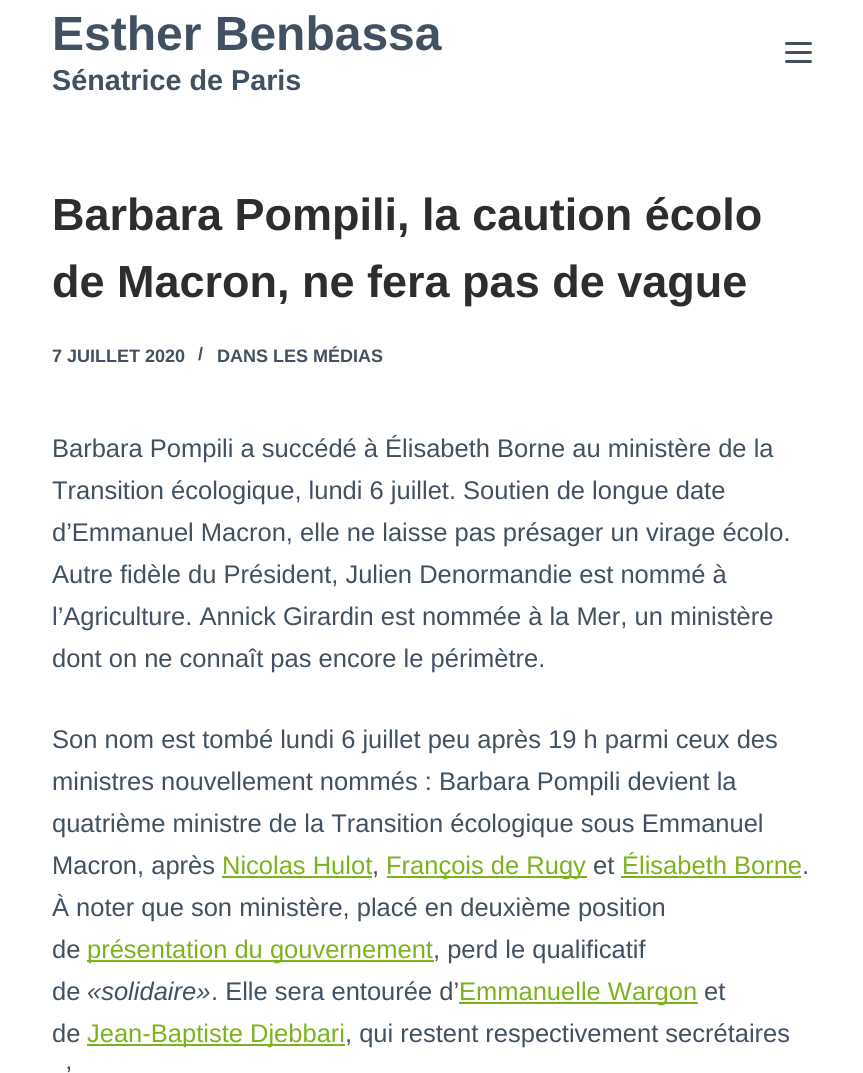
#include <cairo.h>
#include <math.h>
#include <stddef.h>

static cairo_t *ctx;

static void use_color(int r, int g, int b) {
    cairo_set_source_rgb(ctx, r / 255.0, g / 255.0, b / 255.0);
}

static void round_rect(double x, double y, double w, double h, double r) {
    cairo_new_sub_path(ctx);
    cairo_arc(ctx, x + w - r, y + h - r, r, 0, M_PI / 2);
    cairo_arc(ctx, x + r, y + h - r, r, M_PI / 2, M_PI);
    cairo_arc(ctx, x + r, y + r, r, M_PI, 1.5 * M_PI);
    cairo_arc(ctx, x + w - r, y + r, r, 1.5 * M_PI, 2 * M_PI);
    cairo_close_path(ctx);
}

int main(void) {
    cairo_surface_t *surface = cairo_image_surface_create(CAIRO_FORMAT_RGB24, 863, 1073);
    ctx = cairo_create(surface);
    cairo_font_options_t *options = cairo_font_options_create();
    cairo_font_options_set_hint_metrics(options, CAIRO_HINT_METRICS_OFF);
    cairo_font_options_set_hint_style(options, CAIRO_HINT_STYLE_NONE);
    cairo_set_font_options(ctx, options);
    cairo_set_miter_limit(ctx, 4);
    use_color(255, 255, 255);
    cairo_paint(ctx);
    cairo_select_font_face(ctx, "Liberation Sans", CAIRO_FONT_SLANT_NORMAL, CAIRO_FONT_WEIGHT_BOLD);
    cairo_set_font_size(ctx, 48);
    use_color(65, 81, 98);
    cairo_move_to(ctx, 52, 50);
    cairo_show_text(ctx, "Esther Benbassa");
    cairo_set_font_size(ctx, 28.75);
    cairo_move_to(ctx, 52, 90);
    cairo_show_text(ctx, "Sénatrice de Paris");
    round_rect(785, 42, 27, 3, 1.5);
    cairo_fill(ctx);
    round_rect(785, 51, 27, 3, 1.5);
    cairo_fill(ctx);
    round_rect(785, 60, 27, 3, 1.5);
    cairo_fill(ctx);
    cairo_set_font_size(ctx, 45);
    use_color(45, 45, 45);
    cairo_move_to(ctx, 52, 230);
    cairo_show_text(ctx, "Barbara Pompili, la caution écolo");
    cairo_move_to(ctx, 52, 297);
    cairo_show_text(ctx, "de Macron, ne fera pas de vague");
    cairo_set_font_size(ctx, 18);
    use_color(65, 81, 98);
    cairo_move_to(ctx, 52, 362);
    cairo_show_text(ctx, "7 JUILLET 2020");
    cairo_move_to(ctx, 198, 360);
    cairo_show_text(ctx, "/");
    cairo_move_to(ctx, 217, 362);
    cairo_show_text(ctx, "DANS LES MÉDIAS");
    cairo_select_font_face(ctx, "Liberation Sans", CAIRO_FONT_SLANT_NORMAL, CAIRO_FONT_WEIGHT_NORMAL);
    cairo_set_font_size(ctx, 25.5);
    cairo_move_to(ctx, 52, 457);
    cairo_show_text(ctx, "Barbara Pompili a succédé à Élisabeth Borne au ministère de la");
    cairo_move_to(ctx, 52, 499);
    cairo_show_text(ctx, "Transition écologique, lundi 6 juillet. Soutien de longue date");
    cairo_move_to(ctx, 52, 541);
    cairo_show_text(ctx, "d’Emmanuel Macron, elle ne laisse pas présager un virage écolo.");
    cairo_move_to(ctx, 52, 583);
    cairo_show_text(ctx, "Autre fidèle du Président, Julien Denormandie est nommé à");
    cairo_move_to(ctx, 52, 625);
    cairo_show_text(ctx, "l’Agriculture. Annick Girardin est nommée à la Mer, un ministère");
    cairo_move_to(ctx, 52, 667);
    cairo_show_text(ctx, "dont on ne connaît pas encore le périmètre.");
    cairo_move_to(ctx, 52, 748);
    cairo_show_text(ctx, "Son nom est tombé lundi 6 juillet peu après 19 h parmi ceux des");
    cairo_move_to(ctx, 52, 790);
    cairo_show_text(ctx, "ministres nouvellement nommés : Barbara Pompili devient la");
    cairo_move_to(ctx, 52, 832);
    cairo_show_text(ctx, "quatrième ministre de la Transition écologique sous Emmanuel");
    cairo_move_to(ctx, 52, 874);
    cairo_show_text(ctx, "Macron, après");
    use_color(122, 180, 29);
    cairo_move_to(ctx, 222, 874);
    cairo_show_text(ctx, "Nicolas Hulot");
    cairo_rectangle(ctx, 222, 876, 150, 2);
    cairo_fill(ctx);
    use_color(65, 81, 98);
    cairo_move_to(ctx, 372, 874);
    cairo_show_text(ctx, ",");
    use_color(122, 180, 29);
    cairo_rectangle(ctx, 387, 876, 200, 2);
    cairo_fill(ctx);
    cairo_move_to(ctx, 386, 874);
    cairo_show_text(ctx, "François de Rugy");
    use_color(65, 81, 98);
    cairo_move_to(ctx, 593, 874);
    cairo_show_text(ctx, "et");
    use_color(122, 180, 29);
    cairo_move_to(ctx, 622, 874);
    cairo_show_text(ctx, "Élisabeth Borne");
    cairo_rectangle(ctx, 621, 876, 180, 2);
    cairo_fill(ctx);
    use_color(65, 81, 98);
    cairo_move_to(ctx, 802, 874);
    cairo_show_text(ctx, ".");
    cairo_move_to(ctx, 52, 916);
    cairo_show_text(ctx, "À noter que son ministère, placé en deuxième position");
    cairo_move_to(ctx, 52, 958);
    cairo_show_text(ctx, "de");
    use_color(122, 180, 29);
    cairo_rectangle(ctx, 87, 960, 347, 2);
    cairo_fill(ctx);
    cairo_move_to(ctx, 87, 958);
    cairo_show_text(ctx, "présentation du gouvernement");
    use_color(65, 81, 98);
    cairo_move_to(ctx, 433, 958);
    cairo_show_text(ctx, ", perd le qualificatif");
    cairo_move_to(ctx, 52, 1000);
    cairo_show_text(ctx, "de");
    cairo_select_font_face(ctx, "Liberation Sans", CAIRO_FONT_SLANT_ITALIC, CAIRO_FONT_WEIGHT_NORMAL);
    cairo_move_to(ctx, 87, 1000);
    cairo_show_text(ctx, "«solidaire»");
    cairo_select_font_face(ctx, "Liberation Sans", CAIRO_FONT_SLANT_NORMAL, CAIRO_FONT_WEIGHT_NORMAL);
    cairo_move_to(ctx, 211, 1000);
    cairo_show_text(ctx, ". Elle sera entourée d’");
    use_color(122, 180, 29);
    cairo_rectangle(ctx, 459, 1002, 239, 2);
    cairo_fill(ctx);
    cairo_move_to(ctx, 459, 1000);
    cairo_show_text(ctx, "Emmanuelle Wargon");
    use_color(65, 81, 98);
    cairo_move_to(ctx, 704, 1000);
    cairo_show_text(ctx, "et");
    cairo_move_to(ctx, 52, 1042);
    cairo_show_text(ctx, "de");
    use_color(122, 180, 29);
    cairo_rectangle(ctx, 87, 1044, 258, 2);
    cairo_fill(ctx);
    cairo_move_to(ctx, 87, 1042);
    cairo_show_text(ctx, "Jean-Baptiste Djebbari");
    use_color(65, 81, 98);
    cairo_move_to(ctx, 345, 1042);
    cairo_show_text(ctx, ", qui restent respectivement secrétaires");
    cairo_move_to(ctx, 66, 1084);
    cairo_show_text(ctx, "’");
    cairo_surface_write_to_png(surface, "result.png");
    cairo_font_options_destroy(options);
    cairo_destroy(ctx);
    cairo_surface_destroy(surface);
    return 0;
}
